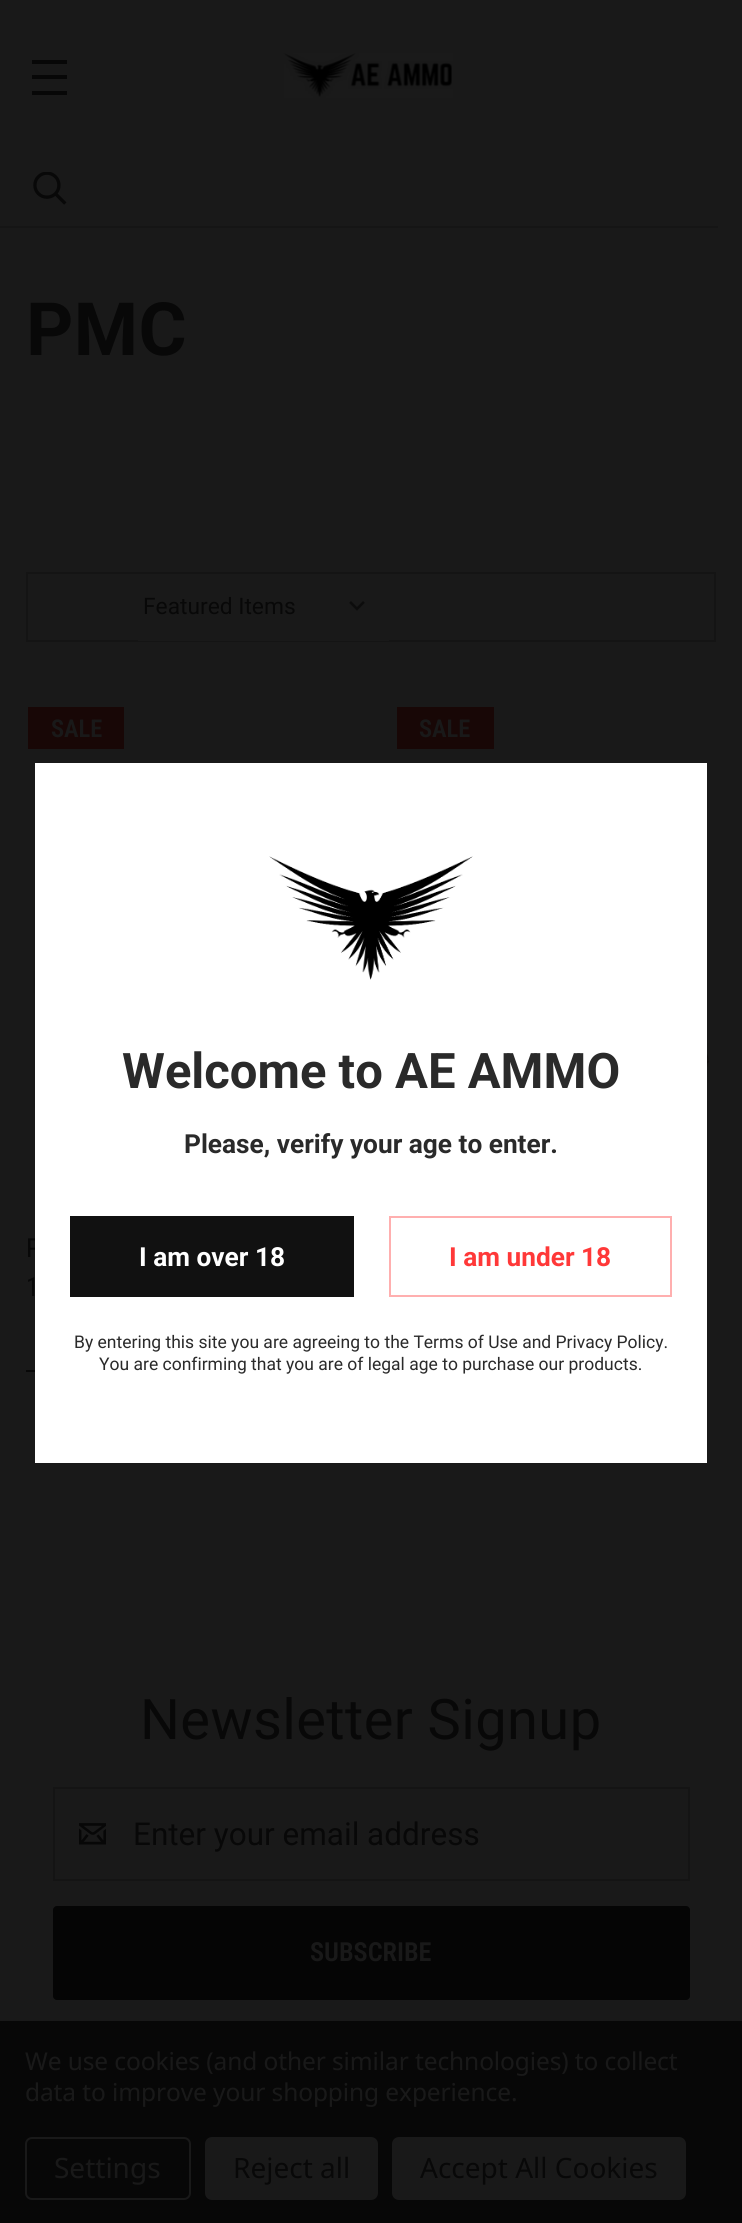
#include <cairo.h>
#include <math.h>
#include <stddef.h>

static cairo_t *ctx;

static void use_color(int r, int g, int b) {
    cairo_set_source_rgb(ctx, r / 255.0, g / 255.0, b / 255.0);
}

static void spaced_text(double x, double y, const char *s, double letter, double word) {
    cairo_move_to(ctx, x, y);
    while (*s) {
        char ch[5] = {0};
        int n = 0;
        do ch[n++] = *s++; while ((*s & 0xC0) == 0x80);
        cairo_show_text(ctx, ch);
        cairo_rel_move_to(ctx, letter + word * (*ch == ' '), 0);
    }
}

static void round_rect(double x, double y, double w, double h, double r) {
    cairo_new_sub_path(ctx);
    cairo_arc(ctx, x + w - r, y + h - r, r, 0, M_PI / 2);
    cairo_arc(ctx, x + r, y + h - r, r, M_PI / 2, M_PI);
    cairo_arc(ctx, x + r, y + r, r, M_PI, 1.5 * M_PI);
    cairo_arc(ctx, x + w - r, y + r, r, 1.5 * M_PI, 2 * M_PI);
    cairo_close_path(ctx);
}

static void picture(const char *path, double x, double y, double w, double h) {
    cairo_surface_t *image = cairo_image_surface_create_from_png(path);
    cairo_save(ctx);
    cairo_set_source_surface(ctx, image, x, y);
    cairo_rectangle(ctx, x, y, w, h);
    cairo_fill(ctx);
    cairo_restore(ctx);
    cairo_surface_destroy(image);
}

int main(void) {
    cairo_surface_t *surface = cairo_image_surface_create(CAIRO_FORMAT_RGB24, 742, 2223);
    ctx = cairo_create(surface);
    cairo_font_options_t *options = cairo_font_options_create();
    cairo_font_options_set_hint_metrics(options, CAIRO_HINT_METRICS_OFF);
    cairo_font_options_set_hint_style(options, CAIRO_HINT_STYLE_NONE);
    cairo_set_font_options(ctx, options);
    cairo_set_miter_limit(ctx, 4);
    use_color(25, 25, 25);
    cairo_paint(ctx);
    picture("img1.png", 283, 53, 170, 45);
    picture("img2.png", 33, 172, 34, 33);
    use_color(21, 21, 21);
    cairo_rectangle(ctx, 0, 226, 718, 2);
    cairo_fill(ctx);
    use_color(7, 7, 7);
    cairo_rectangle(ctx, 32, 75, 35, 4);
    cairo_fill(ctx);
    cairo_rectangle(ctx, 32, 60, 35, 4);
    cairo_fill(ctx);
    cairo_rectangle(ctx, 32, 91, 35, 4);
    cairo_fill(ctx);
    cairo_select_font_face(ctx, "Roboto", CAIRO_FONT_SLANT_NORMAL, CAIRO_FONT_WEIGHT_BOLD);
    cairo_set_font_size(ctx, 73.5);
    use_color(8, 8, 8);
    spaced_text(26, 355, "PMC", 0.4, 0);
    cairo_rectangle(ctx, 27, 573, 688, 68);
    use_color(20, 20, 20);
    cairo_stroke(ctx);
    use_color(25, 25, 25);
    cairo_rectangle(ctx, 138, 640, 251, 1);
    cairo_fill(ctx);
    picture("img3.png", 349, 601, 16, 10);
    cairo_select_font_face(ctx, "Roboto", CAIRO_FONT_SLANT_NORMAL, CAIRO_FONT_WEIGHT_NORMAL);
    cairo_set_font_size(ctx, 22.75);
    use_color(8, 8, 8);
    cairo_move_to(ctx, 143, 614);
    cairo_show_text(ctx, "Featured Items");
    use_color(24, 7, 6);
    cairo_rectangle(ctx, 28, 707, 96, 42);
    cairo_fill(ctx);
    cairo_select_font_face(ctx, "Roboto Condensed SemiBold", CAIRO_FONT_SLANT_NORMAL, CAIRO_FONT_WEIGHT_NORMAL);
    cairo_set_font_size(ctx, 24.5);
    use_color(25, 25, 25);
    cairo_move_to(ctx, 51, 737);
    cairo_show_text(ctx, "SALE");
    picture("img4.png", 33, 859, 2, 249);
    cairo_select_font_face(ctx, "Roboto Condensed", CAIRO_FONT_SLANT_NORMAL, CAIRO_FONT_WEIGHT_NORMAL);
    cairo_set_font_size(ctx, 26.25);
    use_color(8, 8, 8);
    cairo_move_to(ctx, 26, 1257);
    cairo_show_text(ctx, "P");
    cairo_move_to(ctx, 26, 1296);
    cairo_show_text(ctx, "1");
    cairo_rectangle(ctx, 26, 1370, 9, 2);
    cairo_fill(ctx);
    use_color(24, 7, 6);
    cairo_rectangle(ctx, 397, 707, 97, 42);
    cairo_fill(ctx);
    cairo_select_font_face(ctx, "Roboto Condensed SemiBold", CAIRO_FONT_SLANT_NORMAL, CAIRO_FONT_WEIGHT_NORMAL);
    cairo_set_font_size(ctx, 24.5);
    use_color(25, 25, 25);
    cairo_move_to(ctx, 419, 737);
    cairo_show_text(ctx, "SALE");
    picture("img5.png", 707, 808, 2, 293);
    use_color(255, 255, 255);
    cairo_rectangle(ctx, 35, 763, 672, 700);
    cairo_fill(ctx);
    picture("img6.png", 269, 856, 204, 124);
    cairo_select_font_face(ctx, "Roboto", CAIRO_FONT_SLANT_NORMAL, CAIRO_FONT_WEIGHT_BOLD);
    cairo_set_font_size(ctx, 49);
    use_color(42, 42, 42);
    cairo_move_to(ctx, 122, 1088);
    cairo_show_text(ctx, "Welcome to AE AMMO");
    cairo_set_font_size(ctx, 26.25);
    cairo_move_to(ctx, 184, 1153);
    cairo_show_text(ctx, "Please, verify your age to enter.");
    use_color(17, 17, 17);
    cairo_rectangle(ctx, 70, 1216, 284, 81);
    cairo_fill(ctx);
    use_color(255, 255, 255);
    cairo_move_to(ctx, 139, 1266);
    cairo_show_text(ctx, "I am over 18");
    cairo_rectangle(ctx, 390, 1217, 281, 79);
    use_color(255, 175, 175);
    cairo_stroke(ctx);
    use_color(255, 56, 56);
    cairo_move_to(ctx, 449, 1266);
    cairo_show_text(ctx, "I am under 18");
    cairo_select_font_face(ctx, "Roboto", CAIRO_FONT_SLANT_NORMAL, CAIRO_FONT_WEIGHT_NORMAL);
    cairo_set_font_size(ctx, 17.5);
    use_color(42, 42, 42);
    cairo_move_to(ctx, 74, 1348);
    cairo_show_text(ctx, "By entering this site you are agreeing to the Terms of Use and Privacy Policy.");
    cairo_move_to(ctx, 99, 1370);
    cairo_show_text(ctx, "You are confirming that you are of legal age to purchase our products.");
    cairo_set_font_size(ctx, 56);
    use_color(8, 8, 8);
    spaced_text(140, 1739, "Newsletter Signup", 0.4, 0);
    cairo_rectangle(ctx, 54, 1788, 635, 92);
    use_color(20, 20, 20);
    cairo_stroke(ctx);
    picture("img7.png", 79, 1823, 27, 22);
    cairo_set_font_size(ctx, 31.5);
    use_color(8, 8, 8);
    cairo_move_to(ctx, 133, 1845);
    cairo_show_text(ctx, "Enter your email address");
    use_color(5, 5, 5);
    round_rect(53, 1906, 637, 94, 4);
    cairo_fill(ctx);
    cairo_select_font_face(ctx, "Roboto Condensed SemiBold", CAIRO_FONT_SLANT_NORMAL, CAIRO_FONT_WEIGHT_NORMAL);
    cairo_set_font_size(ctx, 26.25);
    use_color(25, 25, 25);
    cairo_move_to(ctx, 310, 1961);
    cairo_show_text(ctx, "SUBSCRIBE");
    use_color(7, 7, 7);
    cairo_rectangle(ctx, 0, 2021, 742, 202);
    cairo_fill(ctx);
    cairo_select_font_face(ctx, "Noto Sans", CAIRO_FONT_SLANT_NORMAL, CAIRO_FONT_WEIGHT_NORMAL);
    cairo_set_font_size(ctx, 24.5);
    use_color(25, 25, 25);
    spaced_text(25, 2070, "We use cookies (and other similar technologies) to collect", -0.1, 0);
    spaced_text(25, 2101, "data to improve your shopping experience.", -0.1, 0);
    round_rect(26, 2138, 164, 61, 6);
    cairo_stroke(ctx);
    cairo_set_font_size(ctx, 28);
    cairo_move_to(ctx, 54, 2178);
    cairo_show_text(ctx, "Settings");
    round_rect(205, 2137, 173, 63, 7);
    cairo_fill(ctx);
    use_color(8, 8, 8);
    cairo_move_to(ctx, 233, 2178);
    cairo_show_text(ctx, "Reject all");
    use_color(25, 25, 25);
    round_rect(392, 2137, 294, 63, 7);
    cairo_fill(ctx);
    use_color(8, 8, 8);
    cairo_move_to(ctx, 420, 2178);
    cairo_show_text(ctx, "Accept All Cookies");
    cairo_surface_write_to_png(surface, "result.png");
    cairo_font_options_destroy(options);
    cairo_destroy(ctx);
    cairo_surface_destroy(surface);
    return 0;
}
